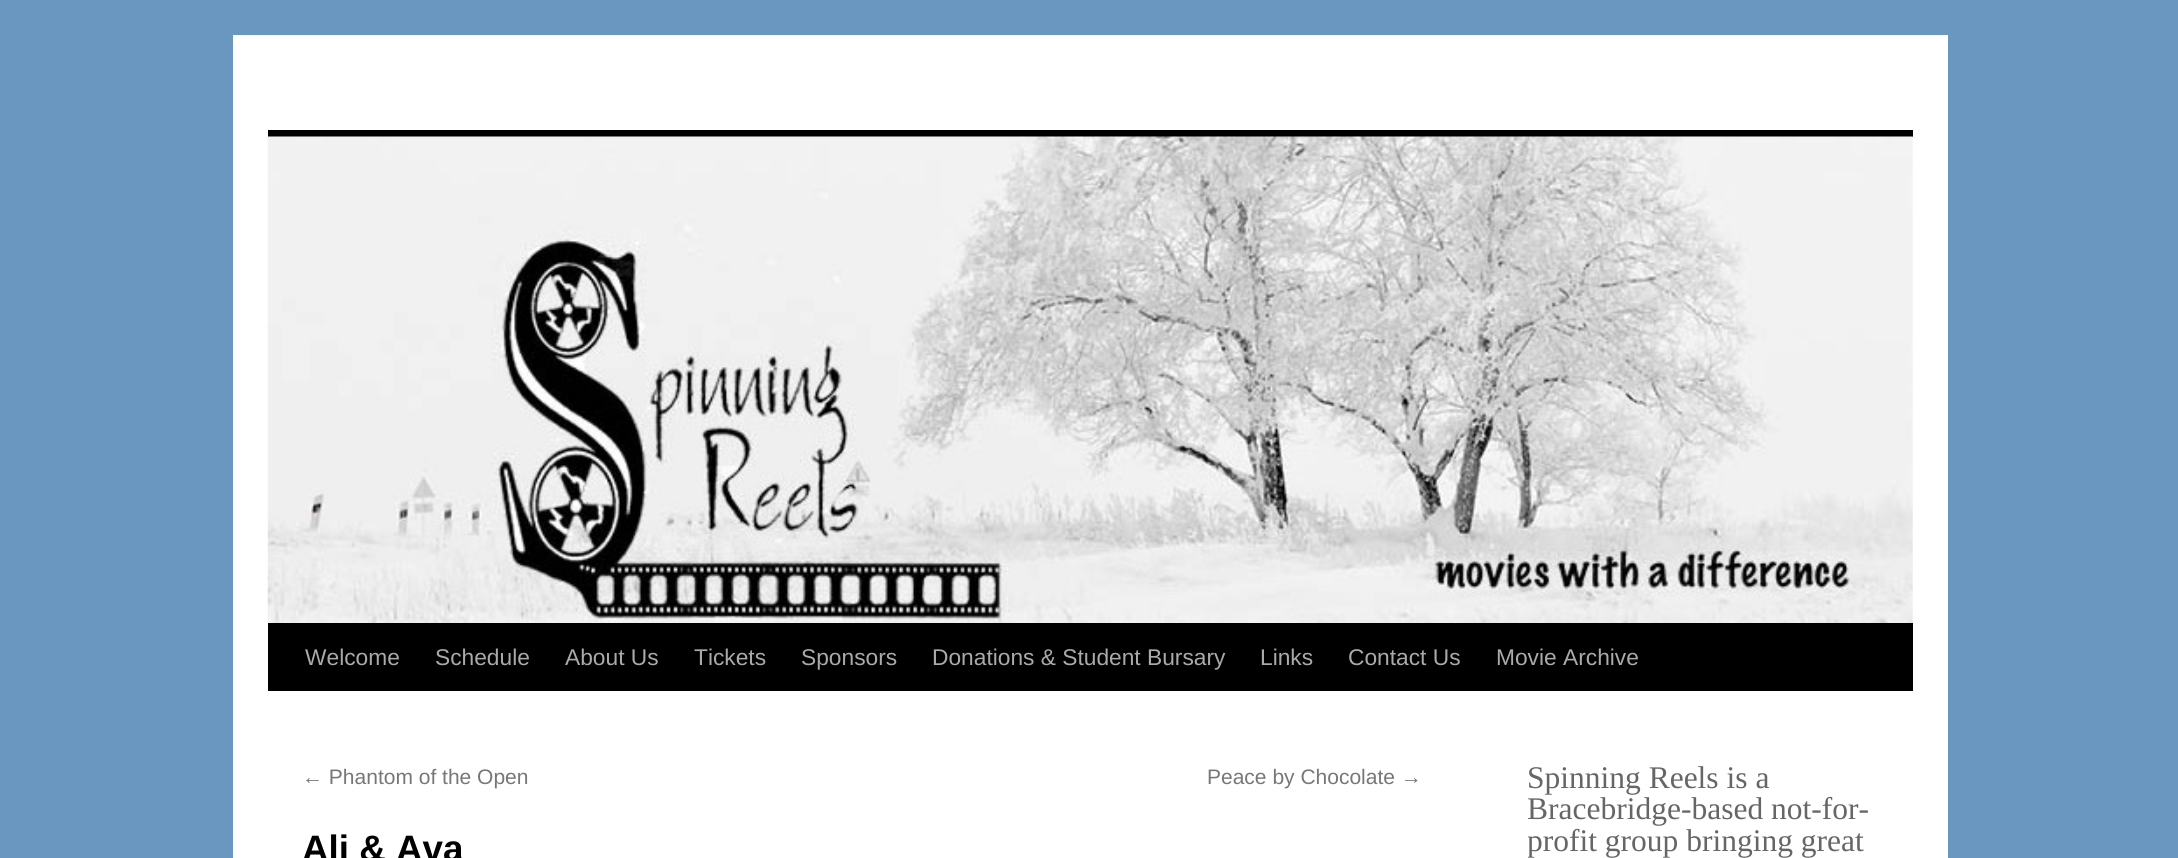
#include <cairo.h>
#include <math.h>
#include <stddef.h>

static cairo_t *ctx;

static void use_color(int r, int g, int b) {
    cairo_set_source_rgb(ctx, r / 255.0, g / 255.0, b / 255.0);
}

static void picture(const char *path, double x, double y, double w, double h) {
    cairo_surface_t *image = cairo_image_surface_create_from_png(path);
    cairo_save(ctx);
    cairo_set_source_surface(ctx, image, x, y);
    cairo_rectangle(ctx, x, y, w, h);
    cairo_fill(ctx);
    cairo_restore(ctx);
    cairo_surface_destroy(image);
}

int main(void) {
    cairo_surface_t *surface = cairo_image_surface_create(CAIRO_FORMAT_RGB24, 2178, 858);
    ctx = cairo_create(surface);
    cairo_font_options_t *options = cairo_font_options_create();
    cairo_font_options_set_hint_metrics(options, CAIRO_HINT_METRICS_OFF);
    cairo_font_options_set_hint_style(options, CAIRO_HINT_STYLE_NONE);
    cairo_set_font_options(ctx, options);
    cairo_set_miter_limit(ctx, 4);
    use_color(105, 151, 191);
    cairo_paint(ctx);
    use_color(255, 255, 255);
    cairo_rectangle(ctx, 233, 35, 1715, 823);
    cairo_fill(ctx);
    use_color(0, 0, 0);
    cairo_rectangle(ctx, 268, 130, 1645, 7);
    cairo_fill(ctx);
    cairo_rectangle(ctx, 268, 623, 1645, 68);
    cairo_fill(ctx);
    picture("img1.png", 267, 136, 1646, 487);
    cairo_select_font_face(ctx, "Liberation Sans", CAIRO_FONT_SLANT_NORMAL, CAIRO_FONT_WEIGHT_NORMAL);
    cairo_set_font_size(ctx, 22.75);
    use_color(170, 170, 170);
    cairo_move_to(ctx, 305, 665);
    cairo_show_text(ctx, "Welcome");
    cairo_move_to(ctx, 435, 665);
    cairo_show_text(ctx, "Schedule");
    cairo_move_to(ctx, 565, 665);
    cairo_show_text(ctx, "About Us");
    cairo_move_to(ctx, 694, 665);
    cairo_show_text(ctx, "Tickets");
    cairo_move_to(ctx, 801, 665);
    cairo_show_text(ctx, "Sponsors");
    cairo_move_to(ctx, 932, 665);
    cairo_show_text(ctx, "Donations & Student Bursary");
    cairo_move_to(ctx, 1260, 665);
    cairo_show_text(ctx, "Links");
    cairo_move_to(ctx, 1348, 665);
    cairo_show_text(ctx, "Contact Us");
    cairo_move_to(ctx, 1496, 665);
    cairo_show_text(ctx, "Movie Archive");
    cairo_set_font_size(ctx, 21);
    use_color(119, 119, 119);
    cairo_move_to(ctx, 302, 784);
    cairo_show_text(ctx, "← Phantom of the Open");
    cairo_move_to(ctx, 1207, 784);
    cairo_show_text(ctx, "Peace by Chocolate →");
    cairo_select_font_face(ctx, "Liberation Sans", CAIRO_FONT_SLANT_NORMAL, CAIRO_FONT_WEIGHT_BOLD);
    cairo_set_font_size(ctx, 36.75);
    use_color(0, 0, 0);
    cairo_move_to(ctx, 302, 861);
    cairo_show_text(ctx, "Ali & Ava");
    cairo_select_font_face(ctx, "Liberation Serif", CAIRO_FONT_SLANT_NORMAL, CAIRO_FONT_WEIGHT_NORMAL);
    cairo_set_font_size(ctx, 31.5);
    use_color(102, 102, 102);
    cairo_move_to(ctx, 1527, 788);
    cairo_show_text(ctx, "Spinning Reels is a");
    cairo_move_to(ctx, 1527, 819);
    cairo_show_text(ctx, "Bracebridge-based not-for-");
    cairo_save(ctx);
    cairo_rectangle(ctx, 1528, 761, 385, 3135);
    cairo_clip(ctx);
    cairo_move_to(ctx, 1527, 851);
    cairo_show_text(ctx, "profit group bringing great");
    cairo_restore(ctx);
    cairo_surface_write_to_png(surface, "result.png");
    cairo_font_options_destroy(options);
    cairo_destroy(ctx);
    cairo_surface_destroy(surface);
    return 0;
}
